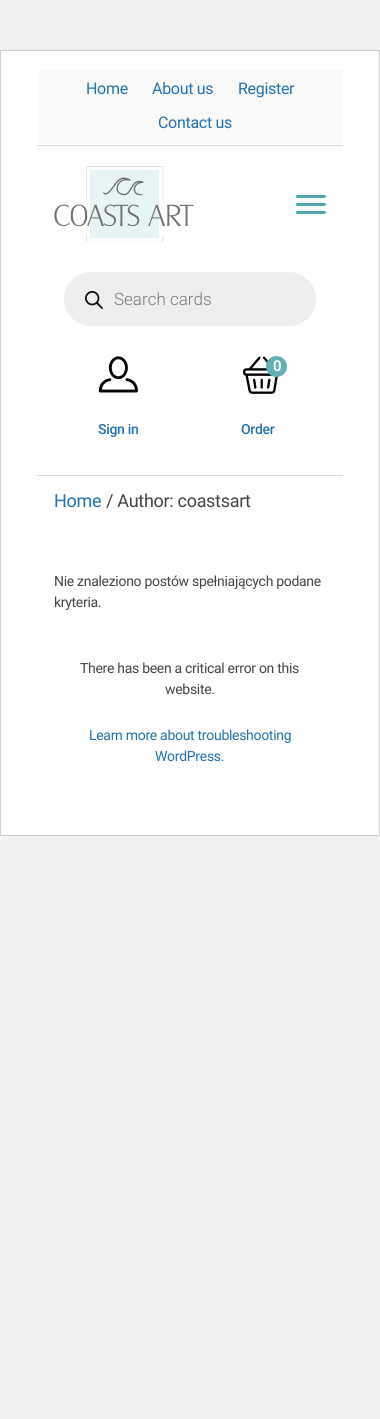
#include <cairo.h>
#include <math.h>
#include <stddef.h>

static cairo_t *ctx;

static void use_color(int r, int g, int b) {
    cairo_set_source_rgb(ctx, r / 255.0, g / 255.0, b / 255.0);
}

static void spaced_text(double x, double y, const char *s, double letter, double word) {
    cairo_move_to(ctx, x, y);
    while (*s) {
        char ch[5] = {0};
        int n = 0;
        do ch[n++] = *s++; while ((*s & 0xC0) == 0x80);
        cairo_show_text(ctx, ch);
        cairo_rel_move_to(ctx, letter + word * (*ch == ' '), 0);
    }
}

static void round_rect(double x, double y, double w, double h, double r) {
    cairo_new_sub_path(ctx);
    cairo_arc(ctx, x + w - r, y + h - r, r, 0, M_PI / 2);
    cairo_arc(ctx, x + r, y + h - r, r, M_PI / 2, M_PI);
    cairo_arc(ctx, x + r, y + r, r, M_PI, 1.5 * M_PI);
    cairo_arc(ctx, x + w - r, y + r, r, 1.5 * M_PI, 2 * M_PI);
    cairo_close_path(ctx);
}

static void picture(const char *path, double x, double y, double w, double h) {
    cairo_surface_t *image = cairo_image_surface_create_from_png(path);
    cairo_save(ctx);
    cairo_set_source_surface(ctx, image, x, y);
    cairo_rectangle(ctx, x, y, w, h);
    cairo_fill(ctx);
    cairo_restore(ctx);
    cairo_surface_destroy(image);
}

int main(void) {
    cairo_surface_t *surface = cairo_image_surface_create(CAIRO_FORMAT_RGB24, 380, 1419);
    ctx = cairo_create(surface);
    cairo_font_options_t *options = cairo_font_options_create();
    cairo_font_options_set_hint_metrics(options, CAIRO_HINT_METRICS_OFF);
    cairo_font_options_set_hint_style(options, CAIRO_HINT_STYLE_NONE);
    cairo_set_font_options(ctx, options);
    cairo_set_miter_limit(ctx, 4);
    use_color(241, 241, 241);
    cairo_paint(ctx);
    use_color(255, 255, 255);
    cairo_rectangle(ctx, 0.5, 50.5, 379, 785);
    cairo_fill_preserve(ctx);
    use_color(204, 208, 212);
    cairo_set_line_width(ctx, 1);
    cairo_stroke(ctx);
    use_color(249, 249, 248);
    cairo_rectangle(ctx, 38, 70, 304, 74);
    cairo_fill(ctx);
    use_color(219, 219, 219);
    cairo_rectangle(ctx, 37, 145, 306, 1);
    cairo_fill(ctx);
    cairo_select_font_face(ctx, "Roboto", CAIRO_FONT_SLANT_NORMAL, CAIRO_FONT_WEIGHT_NORMAL);
    cairo_set_font_size(ctx, 16);
    use_color(34, 113, 177);
    spaced_text(86, 94, "Home", -0.3, 0);
    spaced_text(152, 94, "About us", -0.3, 0);
    spaced_text(238, 94, "Register", -0.3, 0);
    spaced_text(158, 128, "Contact us", -0.3, 0);
    use_color(221, 221, 221);
    cairo_rectangle(ctx, 37, 475, 306, 1);
    cairo_fill(ctx);
    picture("img1.png", 54, 166, 140, 76);
    use_color(81, 167, 174);
    round_rect(296, 195, 30, 3, 1.5);
    cairo_fill(ctx);
    round_rect(296, 203, 30, 3, 1.5);
    cairo_fill(ctx);
    round_rect(296, 211, 30, 3, 1.5);
    cairo_fill(ctx);
    use_color(238, 238, 238);
    round_rect(64, 272, 252, 54, 27);
    cairo_fill(ctx);
    picture("img2.png", 85, 291, 18, 18);
    cairo_select_font_face(ctx, "Roboto Light", CAIRO_FONT_SLANT_NORMAL, CAIRO_FONT_WEIGHT_NORMAL);
    cairo_set_font_size(ctx, 17);
    use_color(119, 119, 119);
    cairo_move_to(ctx, 114, 305);
    cairo_show_text(ctx, "Search cards");
    picture("img3.png", 98, 356, 40, 37);
    cairo_select_font_face(ctx, "Roboto Medium", CAIRO_FONT_SLANT_NORMAL, CAIRO_FONT_WEIGHT_NORMAL);
    cairo_set_font_size(ctx, 14);
    use_color(34, 113, 177);
    spaced_text(98, 434, "Sign in", -0.3, 0);
    picture("img4.png", 243, 356, 35, 38);
    use_color(99, 176, 180);
    cairo_arc(ctx, 276.5, 366.5, 10.5, 0, 2 * M_PI);
    cairo_fill(ctx);
    cairo_select_font_face(ctx, "Roboto SemiBold", CAIRO_FONT_SLANT_NORMAL, CAIRO_FONT_WEIGHT_NORMAL);
    cairo_set_font_size(ctx, 15);
    use_color(255, 255, 255);
    spaced_text(273, 371, "0", -0.3, 0);
    cairo_select_font_face(ctx, "Roboto Medium", CAIRO_FONT_SLANT_NORMAL, CAIRO_FONT_WEIGHT_NORMAL);
    cairo_set_font_size(ctx, 14);
    use_color(34, 113, 177);
    spaced_text(241, 434, "Order", -0.3, 0);
    cairo_select_font_face(ctx, "Roboto", CAIRO_FONT_SLANT_NORMAL, CAIRO_FONT_WEIGHT_NORMAL);
    cairo_set_font_size(ctx, 18);
    spaced_text(54, 507, "Home", -0.3, 0);
    use_color(68, 68, 68);
    spaced_text(106, 507, "/ Author: coastsart", -0.3, 0);
    cairo_set_font_size(ctx, 14);
    spaced_text(54, 586, "Nie znaleziono postów spełniających podane", -0.3, 0);
    spaced_text(54, 607, "kryteria.", -0.3, 0);
    spaced_text(80, 673, "There has been a critical error on this", -0.3, 0);
    spaced_text(165, 694, "website.", -0.3, 0);
    use_color(34, 113, 177);
    spaced_text(89, 740, "Learn more about troubleshooting", -0.3, 0);
    spaced_text(155, 761, "WordPress.", -0.3, 0);
    cairo_surface_write_to_png(surface, "result.png");
    cairo_font_options_destroy(options);
    cairo_destroy(ctx);
    cairo_surface_destroy(surface);
    return 0;
}
